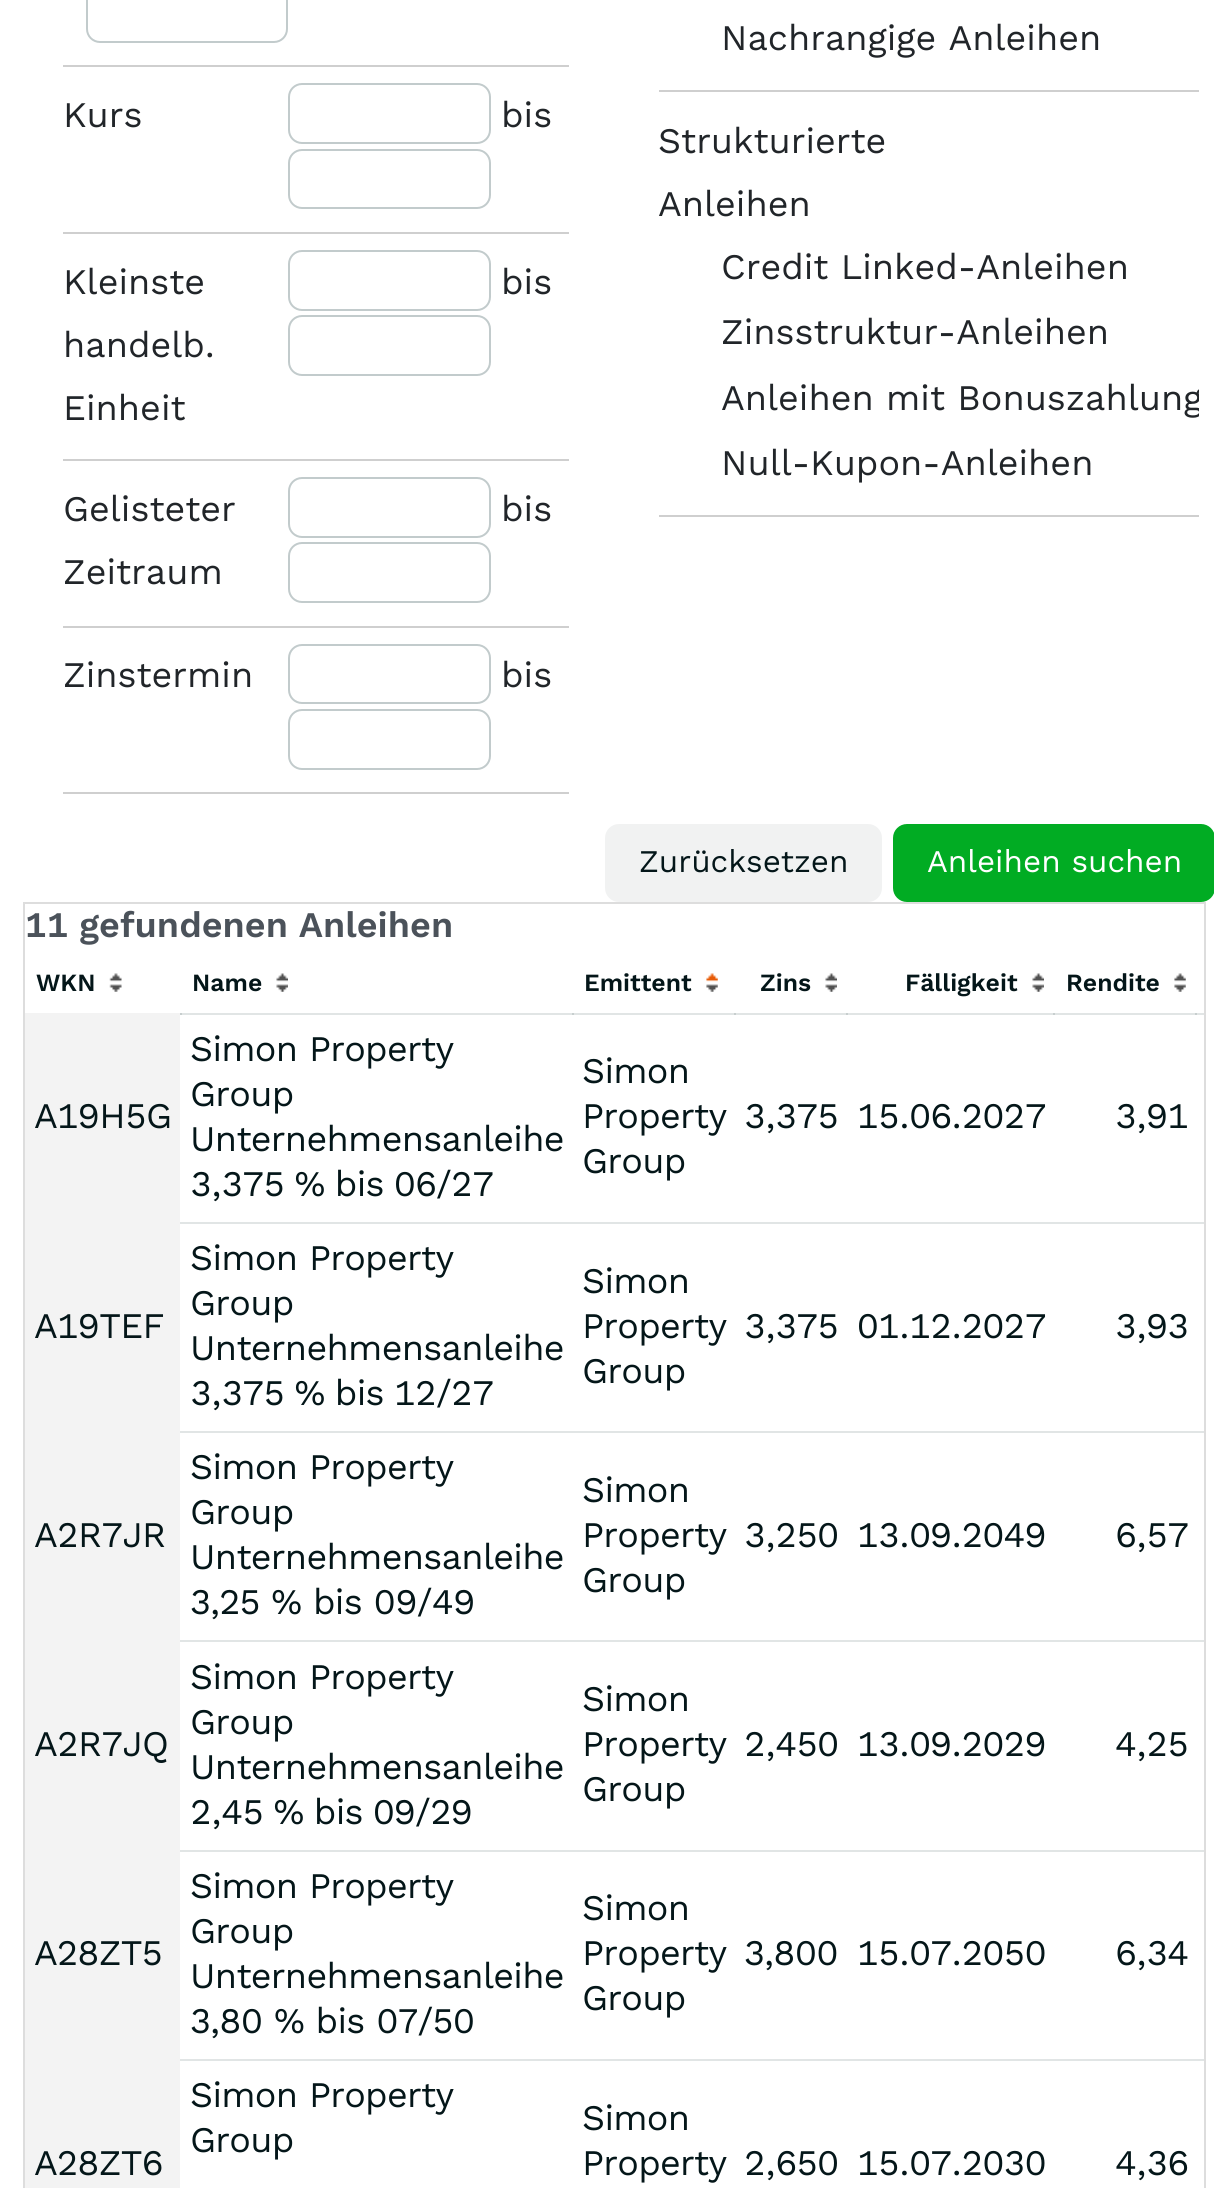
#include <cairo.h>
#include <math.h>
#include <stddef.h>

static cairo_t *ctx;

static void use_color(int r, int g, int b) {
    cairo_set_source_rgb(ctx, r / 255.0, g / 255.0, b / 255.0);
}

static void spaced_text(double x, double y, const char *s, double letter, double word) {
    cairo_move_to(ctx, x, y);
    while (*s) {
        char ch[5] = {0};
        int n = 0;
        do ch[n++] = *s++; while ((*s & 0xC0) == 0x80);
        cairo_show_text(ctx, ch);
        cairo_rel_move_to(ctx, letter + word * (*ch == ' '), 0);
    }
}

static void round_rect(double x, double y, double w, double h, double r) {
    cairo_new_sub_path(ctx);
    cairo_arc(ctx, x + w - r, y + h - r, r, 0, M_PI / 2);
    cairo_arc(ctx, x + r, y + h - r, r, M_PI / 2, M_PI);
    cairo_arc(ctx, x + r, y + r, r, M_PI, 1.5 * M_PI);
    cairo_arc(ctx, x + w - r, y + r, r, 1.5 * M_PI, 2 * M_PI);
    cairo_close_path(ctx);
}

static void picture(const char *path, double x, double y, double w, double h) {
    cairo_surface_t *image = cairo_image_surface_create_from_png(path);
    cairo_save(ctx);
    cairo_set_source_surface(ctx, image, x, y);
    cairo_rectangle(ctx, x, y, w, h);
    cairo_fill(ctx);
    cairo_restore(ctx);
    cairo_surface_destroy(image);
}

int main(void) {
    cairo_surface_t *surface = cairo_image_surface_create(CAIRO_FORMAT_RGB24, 1214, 2188);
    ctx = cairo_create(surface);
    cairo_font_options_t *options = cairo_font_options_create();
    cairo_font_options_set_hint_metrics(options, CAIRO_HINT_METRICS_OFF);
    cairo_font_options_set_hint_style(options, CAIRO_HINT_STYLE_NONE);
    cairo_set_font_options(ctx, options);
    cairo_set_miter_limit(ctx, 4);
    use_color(255, 255, 255);
    cairo_paint(ctx);
    use_color(225, 229, 229);
    cairo_rectangle(ctx, 180, 1013, 1017, 2);
    cairo_fill(ctx);
    use_color(199, 206, 206);
    cairo_rectangle(ctx, 180, 1013, 2, 2);
    cairo_fill(ctx);
    cairo_rectangle(ctx, 572, 1013, 2, 2);
    cairo_fill(ctx);
    cairo_rectangle(ctx, 734, 1013, 2, 2);
    cairo_fill(ctx);
    cairo_rectangle(ctx, 846, 1013, 2, 2);
    cairo_fill(ctx);
    cairo_rectangle(ctx, 1053, 1013, 2, 2);
    cairo_fill(ctx);
    use_color(207, 207, 207);
    cairo_rectangle(ctx, 63, 65, 506, 2);
    cairo_fill(ctx);
    round_rect(87, -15, 200, 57, 13);
    use_color(194, 203, 204);
    cairo_stroke(ctx);
    use_color(207, 207, 207);
    cairo_rectangle(ctx, 63, 232, 506, 2);
    cairo_fill(ctx);
    cairo_select_font_face(ctx, "Work Sans", CAIRO_FONT_SLANT_NORMAL, CAIRO_FONT_WEIGHT_NORMAL);
    cairo_set_font_size(ctx, 36);
    use_color(33, 37, 41);
    cairo_move_to(ctx, 63, 127);
    cairo_show_text(ctx, "Kurs");
    round_rect(289, 84, 201, 59, 13);
    use_color(194, 203, 204);
    cairo_stroke(ctx);
    use_color(33, 37, 41);
    cairo_move_to(ctx, 501, 127);
    cairo_show_text(ctx, "bis");
    round_rect(289, 150, 201, 58, 13);
    use_color(194, 203, 204);
    cairo_stroke(ctx);
    use_color(207, 207, 207);
    cairo_rectangle(ctx, 63, 459, 506, 2);
    cairo_fill(ctx);
    use_color(33, 37, 41);
    cairo_move_to(ctx, 63, 294);
    cairo_show_text(ctx, "Kleinste");
    cairo_move_to(ctx, 63, 357);
    cairo_show_text(ctx, "handelb.");
    cairo_move_to(ctx, 63, 420);
    cairo_show_text(ctx, "Einheit");
    round_rect(289, 251, 201, 59, 13);
    use_color(194, 203, 204);
    cairo_stroke(ctx);
    use_color(33, 37, 41);
    cairo_move_to(ctx, 501, 294);
    cairo_show_text(ctx, "bis");
    round_rect(289, 316, 201, 59, 13);
    use_color(194, 203, 204);
    cairo_stroke(ctx);
    use_color(207, 207, 207);
    cairo_rectangle(ctx, 63, 626, 506, 2);
    cairo_fill(ctx);
    use_color(33, 37, 41);
    cairo_move_to(ctx, 63, 521);
    cairo_show_text(ctx, "Gelisteter");
    cairo_move_to(ctx, 63, 584);
    cairo_show_text(ctx, "Zeitraum");
    round_rect(289, 478, 201, 59, 13);
    use_color(194, 203, 204);
    cairo_stroke(ctx);
    use_color(33, 37, 41);
    cairo_move_to(ctx, 501, 521);
    cairo_show_text(ctx, "bis");
    round_rect(289, 543, 201, 59, 13);
    use_color(194, 203, 204);
    cairo_stroke(ctx);
    use_color(207, 207, 207);
    cairo_rectangle(ctx, 63, 792, 506, 2);
    cairo_fill(ctx);
    use_color(33, 37, 41);
    cairo_move_to(ctx, 63, 687);
    cairo_show_text(ctx, "Zinstermin");
    round_rect(289, 645, 201, 58, 13);
    use_color(194, 203, 204);
    cairo_stroke(ctx);
    use_color(33, 37, 41);
    cairo_move_to(ctx, 501, 687);
    cairo_show_text(ctx, "bis");
    round_rect(289, 710, 201, 59, 13);
    use_color(194, 203, 204);
    cairo_stroke(ctx);
    use_color(207, 207, 207);
    cairo_rectangle(ctx, 659, 90, 540, 2);
    cairo_fill(ctx);
    use_color(33, 37, 41);
    cairo_move_to(ctx, 721, 50);
    cairo_show_text(ctx, "Nachrangige Anleihen");
    use_color(207, 207, 207);
    cairo_rectangle(ctx, 659, 515, 540, 2);
    cairo_fill(ctx);
    use_color(33, 37, 41);
    cairo_move_to(ctx, 658, 153);
    cairo_show_text(ctx, "Strukturierte");
    cairo_move_to(ctx, 658, 216);
    cairo_show_text(ctx, "Anleihen");
    cairo_move_to(ctx, 721, 279);
    cairo_show_text(ctx, "Credit Linked-Anleihen");
    cairo_move_to(ctx, 721, 344);
    cairo_show_text(ctx, "Zinsstruktur-Anleihen");
    cairo_save(ctx);
    cairo_rectangle(ctx, 659, 236, 540, 261);
    cairo_clip(ctx);
    cairo_move_to(ctx, 721, 410);
    cairo_show_text(ctx, "Anleihen mit Bonuszahlung");
    cairo_restore(ctx);
    cairo_move_to(ctx, 721, 475);
    cairo_show_text(ctx, "Null-Kupon-Anleihen");
    use_color(241, 242, 242);
    round_rect(606, 825, 275, 76, 13);
    cairo_fill_preserve(ctx);
    cairo_stroke(ctx);
    cairo_set_font_size(ctx, 31.5);
    use_color(4, 22, 25);
    cairo_move_to(ctx, 639, 872);
    cairo_show_text(ctx, "Zurücksetzen");
    use_color(1, 172, 35);
    round_rect(894, 825, 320, 76, 13);
    cairo_fill_preserve(ctx);
    cairo_stroke(ctx);
    use_color(255, 255, 255);
    cairo_move_to(ctx, 927, 872);
    cairo_show_text(ctx, "Anleihen suchen");
    cairo_rectangle(ctx, 24, 903, 1181, 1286);
    use_color(221, 221, 221);
    cairo_stroke(ctx);
    cairo_select_font_face(ctx, "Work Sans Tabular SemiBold", CAIRO_FONT_SLANT_NORMAL, CAIRO_FONT_WEIGHT_NORMAL);
    cairo_set_font_size(ctx, 36);
    use_color(75, 82, 90);
    cairo_move_to(ctx, 25, 937);
    cairo_show_text(ctx, "11 gefundenen Anleihen");
    cairo_select_font_face(ctx, "Work Sans SemiBold", CAIRO_FONT_SLANT_NORMAL, CAIRO_FONT_WEIGHT_NORMAL);
    cairo_set_font_size(ctx, 24.75);
    use_color(4, 22, 25);
    cairo_move_to(ctx, 36, 991);
    cairo_show_text(ctx, "WKN");
    picture("img1.png", 109, 973, 13, 19);
    cairo_move_to(ctx, 192, 991);
    cairo_show_text(ctx, "Name");
    picture("img2.png", 276, 973, 12, 19);
    cairo_move_to(ctx, 584, 991);
    cairo_show_text(ctx, "Emittent");
    picture("img3.png", 706, 973, 12, 19);
    cairo_move_to(ctx, 760, 991);
    cairo_show_text(ctx, "Zins");
    picture("img4.png", 825, 973, 12, 19);
    cairo_move_to(ctx, 905, 991);
    cairo_show_text(ctx, "Fälligkeit");
    picture("img2.png", 1032, 973, 12, 19);
    cairo_move_to(ctx, 1066, 991);
    cairo_show_text(ctx, "Rendite");
    picture("img5.png", 1174, 973, 12, 19);
    use_color(225, 229, 229);
    cairo_rectangle(ctx, 1195, 1013, 9, 2);
    cairo_fill(ctx);
    use_color(199, 206, 206);
    cairo_rectangle(ctx, 1195, 1013, 2, 2);
    cairo_fill(ctx);
    use_color(225, 229, 229);
    cairo_rectangle(ctx, 180, 1222, 1024, 2);
    cairo_fill(ctx);
    use_color(243, 243, 243);
    cairo_rectangle(ctx, 25, 1013, 155, 1175);
    cairo_fill(ctx);
    cairo_select_font_face(ctx, "Work Sans Tabular", CAIRO_FONT_SLANT_NORMAL, CAIRO_FONT_WEIGHT_NORMAL);
    cairo_set_font_size(ctx, 36);
    use_color(4, 22, 25);
    spaced_text(34, 1128, "A19H5G", -0.7, 0);
    cairo_select_font_face(ctx, "Work Sans", CAIRO_FONT_SLANT_NORMAL, CAIRO_FONT_WEIGHT_NORMAL);
    spaced_text(190, 1061, "Simon Property", -0.7, 0);
    spaced_text(190, 1106, "Group", -0.7, 0);
    spaced_text(190, 1151, "Unternehmensanleihe", -0.7, 0);
    cairo_select_font_face(ctx, "Work Sans Tabular", CAIRO_FONT_SLANT_NORMAL, CAIRO_FONT_WEIGHT_NORMAL);
    spaced_text(190, 1196, "3,375 % bis 06/27", -0.7, 0);
    cairo_select_font_face(ctx, "Work Sans", CAIRO_FONT_SLANT_NORMAL, CAIRO_FONT_WEIGHT_NORMAL);
    spaced_text(582, 1083, "Simon", -0.7, 0);
    spaced_text(582, 1128, "Property", -0.7, 0);
    spaced_text(582, 1173, "Group", -0.7, 0);
    cairo_select_font_face(ctx, "Work Sans Tabular", CAIRO_FONT_SLANT_NORMAL, CAIRO_FONT_WEIGHT_NORMAL);
    spaced_text(744, 1128, "3,375", -0.7, 0);
    spaced_text(857, 1128, "15.06.2027", -0.7, 0);
    spaced_text(1115, 1128, "3,91", -0.7, 0);
    use_color(225, 229, 229);
    cairo_rectangle(ctx, 180, 1431, 1024, 2);
    cairo_fill(ctx);
    use_color(4, 22, 25);
    spaced_text(34, 1338, "A19TEF", -0.7, 0);
    cairo_select_font_face(ctx, "Work Sans", CAIRO_FONT_SLANT_NORMAL, CAIRO_FONT_WEIGHT_NORMAL);
    spaced_text(190, 1270, "Simon Property", -0.7, 0);
    spaced_text(190, 1315, "Group", -0.7, 0);
    spaced_text(190, 1360, "Unternehmensanleihe", -0.7, 0);
    cairo_select_font_face(ctx, "Work Sans Tabular", CAIRO_FONT_SLANT_NORMAL, CAIRO_FONT_WEIGHT_NORMAL);
    spaced_text(190, 1405, "3,375 % bis 12/27", -0.7, 0);
    cairo_select_font_face(ctx, "Work Sans", CAIRO_FONT_SLANT_NORMAL, CAIRO_FONT_WEIGHT_NORMAL);
    spaced_text(582, 1293, "Simon", -0.7, 0);
    spaced_text(582, 1338, "Property", -0.7, 0);
    spaced_text(582, 1383, "Group", -0.7, 0);
    cairo_select_font_face(ctx, "Work Sans Tabular", CAIRO_FONT_SLANT_NORMAL, CAIRO_FONT_WEIGHT_NORMAL);
    spaced_text(744, 1338, "3,375", -0.7, 0);
    spaced_text(857, 1338, "01.12.2027", -0.7, 0);
    spaced_text(1115, 1338, "3,93", -0.7, 0);
    use_color(225, 229, 229);
    cairo_rectangle(ctx, 180, 1640, 1024, 2);
    cairo_fill(ctx);
    use_color(4, 22, 25);
    spaced_text(34, 1547, "A2R7JR", -0.7, 0);
    cairo_select_font_face(ctx, "Work Sans", CAIRO_FONT_SLANT_NORMAL, CAIRO_FONT_WEIGHT_NORMAL);
    spaced_text(190, 1479, "Simon Property", -0.7, 0);
    spaced_text(190, 1524, "Group", -0.7, 0);
    spaced_text(190, 1569, "Unternehmensanleihe", -0.7, 0);
    spaced_text(190, 1614, "3,25 % bis 09/49", -0.7, 0);
    spaced_text(582, 1502, "Simon", -0.7, 0);
    spaced_text(582, 1547, "Property", -0.7, 0);
    spaced_text(582, 1592, "Group", -0.7, 0);
    cairo_select_font_face(ctx, "Work Sans Tabular", CAIRO_FONT_SLANT_NORMAL, CAIRO_FONT_WEIGHT_NORMAL);
    spaced_text(744, 1547, "3,250", -0.7, 0);
    spaced_text(857, 1547, "13.09.2049", -0.7, 0);
    spaced_text(1115, 1547, "6,57", -0.7, 0);
    use_color(225, 229, 229);
    cairo_rectangle(ctx, 180, 1850, 1024, 2);
    cairo_fill(ctx);
    use_color(4, 22, 25);
    spaced_text(34, 1756, "A2R7JQ", -0.7, 0);
    cairo_select_font_face(ctx, "Work Sans", CAIRO_FONT_SLANT_NORMAL, CAIRO_FONT_WEIGHT_NORMAL);
    spaced_text(190, 1689, "Simon Property", -0.7, 0);
    spaced_text(190, 1734, "Group", -0.7, 0);
    spaced_text(190, 1779, "Unternehmensanleihe", -0.7, 0);
    cairo_select_font_face(ctx, "Work Sans Tabular", CAIRO_FONT_SLANT_NORMAL, CAIRO_FONT_WEIGHT_NORMAL);
    spaced_text(190, 1824, "2,45 % bis 09/29", -0.7, 0);
    cairo_select_font_face(ctx, "Work Sans", CAIRO_FONT_SLANT_NORMAL, CAIRO_FONT_WEIGHT_NORMAL);
    spaced_text(582, 1711, "Simon", -0.7, 0);
    spaced_text(582, 1756, "Property", -0.7, 0);
    spaced_text(582, 1801, "Group", -0.7, 0);
    cairo_select_font_face(ctx, "Work Sans Tabular", CAIRO_FONT_SLANT_NORMAL, CAIRO_FONT_WEIGHT_NORMAL);
    spaced_text(744, 1756, "2,450", -0.7, 0);
    spaced_text(857, 1756, "13.09.2029", -0.7, 0);
    spaced_text(1115, 1756, "4,25", -0.7, 0);
    use_color(225, 229, 229);
    cairo_rectangle(ctx, 180, 2059, 1024, 2);
    cairo_fill(ctx);
    cairo_select_font_face(ctx, "Work Sans", CAIRO_FONT_SLANT_NORMAL, CAIRO_FONT_WEIGHT_NORMAL);
    use_color(4, 22, 25);
    spaced_text(34, 1965, "A28ZT5", -0.7, 0);
    spaced_text(190, 1898, "Simon Property", -0.7, 0);
    spaced_text(190, 1943, "Group", -0.7, 0);
    spaced_text(190, 1988, "Unternehmensanleihe", -0.7, 0);
    spaced_text(190, 2033, "3,80 % bis 07/50", -0.7, 0);
    spaced_text(582, 1920, "Simon", -0.7, 0);
    spaced_text(582, 1965, "Property", -0.7, 0);
    spaced_text(582, 2010, "Group", -0.7, 0);
    spaced_text(744, 1965, "3,800", -0.7, 0);
    cairo_select_font_face(ctx, "Work Sans Tabular", CAIRO_FONT_SLANT_NORMAL, CAIRO_FONT_WEIGHT_NORMAL);
    spaced_text(857, 1965, "15.07.2050", -0.7, 0);
    spaced_text(1115, 1965, "6,34", -0.7, 0);
    cairo_select_font_face(ctx, "Work Sans", CAIRO_FONT_SLANT_NORMAL, CAIRO_FONT_WEIGHT_NORMAL);
    spaced_text(34, 2175, "A28ZT6", -0.7, 0);
    spaced_text(190, 2107, "Simon Property", -0.7, 0);
    spaced_text(190, 2152, "Group", -0.7, 0);
    spaced_text(582, 2130, "Simon", -0.7, 0);
    spaced_text(582, 2175, "Property", -0.7, 0);
    cairo_select_font_face(ctx, "Work Sans Tabular", CAIRO_FONT_SLANT_NORMAL, CAIRO_FONT_WEIGHT_NORMAL);
    spaced_text(744, 2175, "2,650", -0.7, 0);
    spaced_text(857, 2175, "15.07.2030", -0.7, 0);
    spaced_text(1115, 2175, "4,36", -0.7, 0);
    cairo_surface_write_to_png(surface, "result.png");
    cairo_font_options_destroy(options);
    cairo_destroy(ctx);
    cairo_surface_destroy(surface);
    return 0;
}
